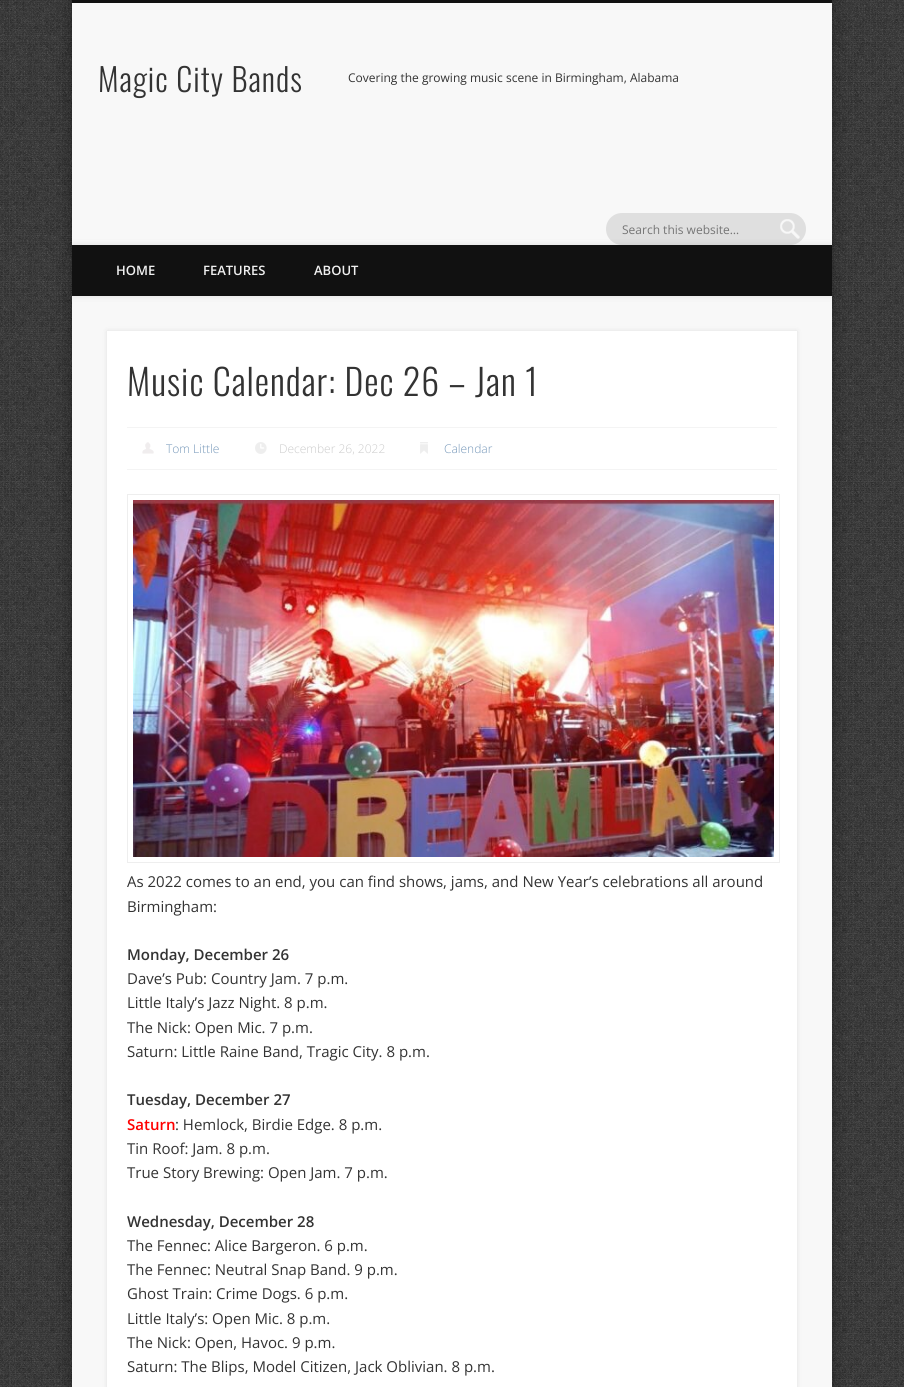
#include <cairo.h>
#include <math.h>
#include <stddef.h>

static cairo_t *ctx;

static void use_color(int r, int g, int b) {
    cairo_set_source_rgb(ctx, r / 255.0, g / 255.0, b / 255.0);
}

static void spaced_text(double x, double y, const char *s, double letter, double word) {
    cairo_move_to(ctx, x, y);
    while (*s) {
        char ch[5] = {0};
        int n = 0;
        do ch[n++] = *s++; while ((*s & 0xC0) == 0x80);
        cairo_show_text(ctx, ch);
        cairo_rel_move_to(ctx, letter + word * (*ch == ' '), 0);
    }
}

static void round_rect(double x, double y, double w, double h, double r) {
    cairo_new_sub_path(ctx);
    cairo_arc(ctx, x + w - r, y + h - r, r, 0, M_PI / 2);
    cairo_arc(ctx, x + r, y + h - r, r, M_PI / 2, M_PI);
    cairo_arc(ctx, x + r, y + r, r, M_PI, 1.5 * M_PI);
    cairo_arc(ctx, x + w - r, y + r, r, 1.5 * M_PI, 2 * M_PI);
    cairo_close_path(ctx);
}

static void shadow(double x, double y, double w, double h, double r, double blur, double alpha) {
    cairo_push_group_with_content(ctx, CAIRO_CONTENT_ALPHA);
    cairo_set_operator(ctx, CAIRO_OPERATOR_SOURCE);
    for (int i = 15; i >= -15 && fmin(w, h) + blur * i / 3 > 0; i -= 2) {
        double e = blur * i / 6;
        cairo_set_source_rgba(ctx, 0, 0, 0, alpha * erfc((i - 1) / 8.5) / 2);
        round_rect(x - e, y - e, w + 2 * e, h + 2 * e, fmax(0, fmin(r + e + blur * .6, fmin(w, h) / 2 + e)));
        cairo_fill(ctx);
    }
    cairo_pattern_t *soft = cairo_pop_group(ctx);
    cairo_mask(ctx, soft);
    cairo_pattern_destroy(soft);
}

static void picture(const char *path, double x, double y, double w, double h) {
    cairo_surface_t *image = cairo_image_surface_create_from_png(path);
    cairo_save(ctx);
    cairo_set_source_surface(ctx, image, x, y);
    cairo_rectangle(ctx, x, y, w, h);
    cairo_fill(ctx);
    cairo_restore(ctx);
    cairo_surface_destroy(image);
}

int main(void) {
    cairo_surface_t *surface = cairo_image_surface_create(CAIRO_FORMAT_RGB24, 904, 1387);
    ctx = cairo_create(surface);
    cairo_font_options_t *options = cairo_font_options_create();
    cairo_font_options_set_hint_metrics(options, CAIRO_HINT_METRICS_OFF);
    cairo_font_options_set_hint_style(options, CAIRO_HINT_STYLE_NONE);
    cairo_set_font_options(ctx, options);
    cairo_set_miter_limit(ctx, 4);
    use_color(255, 255, 255);
    cairo_paint(ctx);
    picture("img1.png", 0, 0, 904, 1387);
    use_color(0, 0, 0);
    shadow(72, 0, 760, 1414, 0, 9, 0.4);
    use_color(248, 248, 248);
    cairo_rectangle(ctx, 72, 3, 760, 1384);
    cairo_fill(ctx);
    use_color(17, 17, 17);
    cairo_rectangle(ctx, 72, 0, 760, 3);
    cairo_fill(ctx);
    cairo_select_font_face(ctx, "Oswald Light", CAIRO_FONT_SLANT_NORMAL, CAIRO_FONT_WEIGHT_NORMAL);
    cairo_set_font_size(ctx, 32);
    use_color(51, 51, 51);
    spaced_text(98, 92, "Magic City Bands", 1, 0);
    cairo_select_font_face(ctx, "Open Sans", CAIRO_FONT_SLANT_NORMAL, CAIRO_FONT_WEIGHT_NORMAL);
    cairo_set_font_size(ctx, 12);
    cairo_move_to(ctx, 348, 82);
    cairo_show_text(ctx, "Covering the growing music scene in Birmingham, Alabama");
    use_color(223, 223, 223);
    round_rect(606, 213, 200, 32, 16);
    cairo_fill(ctx);
    picture("img2.png", 780, 219, 20, 20);
    use_color(117, 117, 117);
    cairo_move_to(ctx, 622, 234);
    cairo_show_text(ctx, "Search this website…");
    cairo_save(ctx);
    cairo_rectangle(ctx, 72, 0, 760, 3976);
    cairo_clip(ctx);
    use_color(0, 0, 0);
    shadow(72, 245, 760, 51, 0, 3.5, 0.1);
    cairo_restore(ctx);
    use_color(17, 17, 17);
    cairo_rectangle(ctx, 72, 245, 760, 51);
    cairo_fill(ctx);
    cairo_select_font_face(ctx, "Open Sans SemiBold", CAIRO_FONT_SLANT_NORMAL, CAIRO_FONT_WEIGHT_NORMAL);
    cairo_set_font_size(ctx, 13);
    use_color(240, 240, 240);
    cairo_move_to(ctx, 116, 275);
    cairo_show_text(ctx, "HOME");
    cairo_move_to(ctx, 203, 275);
    cairo_show_text(ctx, "FEATURES");
    cairo_move_to(ctx, 314, 275);
    cairo_show_text(ctx, "ABOUT");
    use_color(0, 0, 0);
    shadow(107, 331, 690, 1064, 0, 2.5, 0.1);
    use_color(255, 255, 255);
    cairo_rectangle(ctx, 107, 331, 690, 1056);
    cairo_fill(ctx);
    cairo_select_font_face(ctx, "Oswald Light", CAIRO_FONT_SLANT_NORMAL, CAIRO_FONT_WEIGHT_NORMAL);
    cairo_set_font_size(ctx, 36);
    use_color(51, 51, 51);
    spaced_text(127, 396, "Music Calendar: Dec 26 – Jan 1", 1, 0);
    use_color(244, 244, 244);
    cairo_rectangle(ctx, 127, 427, 650, 1);
    cairo_fill(ctx);
    cairo_rectangle(ctx, 127, 469, 650, 1);
    cairo_fill(ctx);
    picture("img3.png", 142, 442, 12, 12);
    cairo_select_font_face(ctx, "Open Sans Light", CAIRO_FONT_SLANT_NORMAL, CAIRO_FONT_WEIGHT_NORMAL);
    cairo_set_font_size(ctx, 12);
    use_color(117, 151, 185);
    cairo_move_to(ctx, 166, 453);
    cairo_show_text(ctx, "Tom Little");
    picture("img4.png", 255, 442, 12, 12);
    use_color(204, 204, 204);
    cairo_move_to(ctx, 279, 453);
    cairo_show_text(ctx, "December 26, 2022");
    picture("img5.png", 420, 442, 8, 12);
    use_color(117, 151, 185);
    cairo_move_to(ctx, 444, 453);
    cairo_show_text(ctx, "Calendar");
    cairo_rectangle(ctx, 127.5, 494.5, 652, 368);
    use_color(238, 238, 238);
    cairo_set_line_width(ctx, 1);
    cairo_stroke(ctx);
    picture("img6.png", 133, 500, 641, 357);
    cairo_select_font_face(ctx, "Open Sans", CAIRO_FONT_SLANT_NORMAL, CAIRO_FONT_WEIGHT_NORMAL);
    cairo_set_font_size(ctx, 15);
    use_color(51, 51, 51);
    cairo_move_to(ctx, 127, 887);
    cairo_show_text(ctx, "As 2022 comes to an end, you can find shows, jams, and New Year’s celebrations all around");
    cairo_move_to(ctx, 127, 912);
    cairo_show_text(ctx, "Birmingham:");
    cairo_select_font_face(ctx, "Open Sans SemiBold", CAIRO_FONT_SLANT_NORMAL, CAIRO_FONT_WEIGHT_NORMAL);
    cairo_move_to(ctx, 127, 960);
    cairo_show_text(ctx, "Monday, December 26");
    cairo_select_font_face(ctx, "Open Sans", CAIRO_FONT_SLANT_NORMAL, CAIRO_FONT_WEIGHT_NORMAL);
    cairo_move_to(ctx, 127, 984);
    cairo_show_text(ctx, "Dave’s Pub: Country Jam. 7 p.m.");
    cairo_move_to(ctx, 127, 1008);
    cairo_show_text(ctx, "Little Italy’s Jazz Night. 8 p.m.");
    cairo_move_to(ctx, 127, 1033);
    cairo_show_text(ctx, "The Nick: Open Mic. 7 p.m.");
    cairo_move_to(ctx, 127, 1057);
    cairo_show_text(ctx, "Saturn: Little Raine Band, Tragic City. 8 p.m.");
    cairo_select_font_face(ctx, "Open Sans SemiBold", CAIRO_FONT_SLANT_NORMAL, CAIRO_FONT_WEIGHT_NORMAL);
    cairo_move_to(ctx, 127, 1105);
    cairo_show_text(ctx, "Tuesday, December 27");
    use_color(255, 0, 0);
    cairo_move_to(ctx, 127, 1130);
    cairo_show_text(ctx, "Saturn");
    cairo_select_font_face(ctx, "Open Sans", CAIRO_FONT_SLANT_NORMAL, CAIRO_FONT_WEIGHT_NORMAL);
    use_color(51, 51, 51);
    cairo_move_to(ctx, 175, 1130);
    cairo_show_text(ctx, ": Hemlock, Birdie Edge. 8 p.m.");
    cairo_move_to(ctx, 127, 1154);
    cairo_show_text(ctx, "Tin Roof: Jam. 8 p.m.");
    cairo_move_to(ctx, 127, 1178);
    cairo_show_text(ctx, "True Story Brewing: Open Jam. 7 p.m.");
    cairo_select_font_face(ctx, "Open Sans SemiBold", CAIRO_FONT_SLANT_NORMAL, CAIRO_FONT_WEIGHT_NORMAL);
    cairo_move_to(ctx, 127, 1227);
    cairo_show_text(ctx, "Wednesday, December 28");
    cairo_select_font_face(ctx, "Open Sans", CAIRO_FONT_SLANT_NORMAL, CAIRO_FONT_WEIGHT_NORMAL);
    cairo_move_to(ctx, 127, 1251);
    cairo_show_text(ctx, "The Fennec: Alice Bargeron. 6 p.m.");
    cairo_move_to(ctx, 127, 1275);
    cairo_show_text(ctx, "The Fennec: Neutral Snap Band. 9 p.m.");
    cairo_move_to(ctx, 127, 1299);
    cairo_show_text(ctx, "Ghost Train: Crime Dogs. 6 p.m.");
    cairo_move_to(ctx, 127, 1324);
    cairo_show_text(ctx, "Little Italy’s: Open Mic. 8 p.m.");
    cairo_move_to(ctx, 127, 1348);
    cairo_show_text(ctx, "The Nick: Open, Havoc. 9 p.m.");
    cairo_move_to(ctx, 127, 1372);
    cairo_show_text(ctx, "Saturn: The Blips, Model Citizen, Jack Oblivian. 8 p.m.");
    cairo_surface_write_to_png(surface, "result.png");
    cairo_font_options_destroy(options);
    cairo_destroy(ctx);
    cairo_surface_destroy(surface);
    return 0;
}
